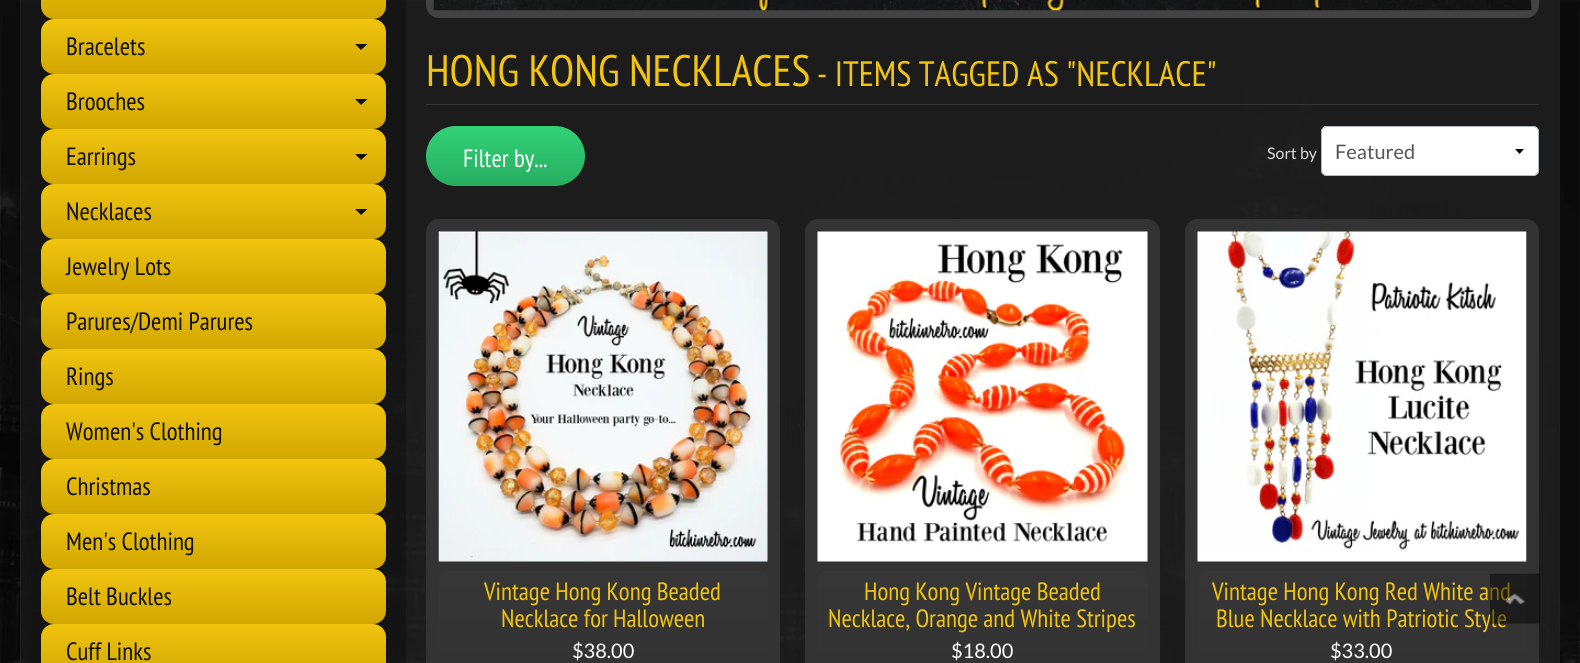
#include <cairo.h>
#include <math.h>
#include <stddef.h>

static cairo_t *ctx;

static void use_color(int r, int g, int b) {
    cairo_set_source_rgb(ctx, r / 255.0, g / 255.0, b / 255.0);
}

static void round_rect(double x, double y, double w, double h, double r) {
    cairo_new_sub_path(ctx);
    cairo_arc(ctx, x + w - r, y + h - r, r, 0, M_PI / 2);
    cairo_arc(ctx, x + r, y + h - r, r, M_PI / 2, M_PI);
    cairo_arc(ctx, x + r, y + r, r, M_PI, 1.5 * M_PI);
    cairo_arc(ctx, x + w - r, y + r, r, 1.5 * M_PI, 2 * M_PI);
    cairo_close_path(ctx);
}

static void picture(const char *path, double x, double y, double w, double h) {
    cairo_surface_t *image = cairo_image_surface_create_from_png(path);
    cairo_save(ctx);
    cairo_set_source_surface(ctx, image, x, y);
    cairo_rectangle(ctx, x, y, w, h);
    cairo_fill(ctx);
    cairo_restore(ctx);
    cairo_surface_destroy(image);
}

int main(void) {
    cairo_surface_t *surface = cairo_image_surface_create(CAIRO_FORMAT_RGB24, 1580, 663);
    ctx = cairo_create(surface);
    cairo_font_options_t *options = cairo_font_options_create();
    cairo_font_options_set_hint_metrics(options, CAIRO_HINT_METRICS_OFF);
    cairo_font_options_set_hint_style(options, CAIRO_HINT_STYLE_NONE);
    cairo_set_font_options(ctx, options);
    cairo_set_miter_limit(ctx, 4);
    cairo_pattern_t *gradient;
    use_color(255, 255, 255);
    cairo_paint(ctx);
    picture("img1.png", 0, 0, 1580, 663);
    cairo_rectangle(ctx, 20.5, -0.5, 1539, 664);
    cairo_set_source_rgba(ctx, 0.133, 0.133, 0.133, 0.7);
    cairo_set_line_width(ctx, 1);
    cairo_stroke(ctx);
    cairo_set_source_rgba(ctx, 0, 0, 0, 0.25);
    cairo_rectangle(ctx, 21, 0, 385, 663);
    cairo_fill(ctx);
    gradient = cairo_pattern_create_linear(214, -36, 214, 19);
    cairo_pattern_add_color_stop_rgba(gradient, 0, 0.945, 0.769, 0.059, 1);
    cairo_pattern_add_color_stop_rgba(gradient, 1, 0.82, 0.655, 0.004, 1);
    cairo_set_source(ctx, gradient);
    cairo_pattern_destroy(gradient);
    round_rect(41, -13, 345, 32, 13);
    cairo_fill(ctx);
    gradient = cairo_pattern_create_linear(214, 19, 214, 74);
    cairo_pattern_add_color_stop_rgba(gradient, 0, 0.945, 0.769, 0.059, 1);
    cairo_pattern_add_color_stop_rgba(gradient, 1, 0.82, 0.655, 0.004, 1);
    cairo_set_source(ctx, gradient);
    cairo_pattern_destroy(gradient);
    round_rect(41, 19, 345, 55, 13);
    cairo_fill(ctx);
    cairo_select_font_face(ctx, "PT Sans Narrow", CAIRO_FONT_SLANT_NORMAL, CAIRO_FONT_WEIGHT_NORMAL);
    cairo_set_font_size(ctx, 25);
    use_color(17, 17, 17);
    cairo_move_to(ctx, 66, 55);
    cairo_show_text(ctx, "Bracelets");
    cairo_new_path(ctx);
    cairo_move_to(ctx, 355, 44);
    cairo_line_to(ctx, 367.5, 44);
    cairo_line_to(ctx, 361, 50);
    cairo_close_path(ctx);
    cairo_fill(ctx);
    gradient = cairo_pattern_create_linear(214, 74, 214, 129);
    cairo_pattern_add_color_stop_rgba(gradient, 0, 0.945, 0.769, 0.059, 1);
    cairo_pattern_add_color_stop_rgba(gradient, 1, 0.82, 0.655, 0.004, 1);
    cairo_set_source(ctx, gradient);
    cairo_pattern_destroy(gradient);
    round_rect(41, 74, 345, 55, 13);
    cairo_fill(ctx);
    use_color(17, 17, 17);
    cairo_move_to(ctx, 66, 110);
    cairo_show_text(ctx, "Brooches");
    cairo_new_path(ctx);
    cairo_move_to(ctx, 355, 99);
    cairo_line_to(ctx, 367.5, 99);
    cairo_line_to(ctx, 361, 105);
    cairo_close_path(ctx);
    cairo_fill(ctx);
    gradient = cairo_pattern_create_linear(214, 129, 214, 184);
    cairo_pattern_add_color_stop_rgba(gradient, 0, 0.945, 0.769, 0.059, 1);
    cairo_pattern_add_color_stop_rgba(gradient, 1, 0.82, 0.655, 0.004, 1);
    cairo_set_source(ctx, gradient);
    cairo_pattern_destroy(gradient);
    round_rect(41, 129, 345, 55, 13);
    cairo_fill(ctx);
    use_color(17, 17, 17);
    cairo_move_to(ctx, 66, 165);
    cairo_show_text(ctx, "Earrings");
    cairo_new_path(ctx);
    cairo_move_to(ctx, 355, 154);
    cairo_line_to(ctx, 367.5, 154);
    cairo_line_to(ctx, 361, 160);
    cairo_close_path(ctx);
    cairo_fill(ctx);
    gradient = cairo_pattern_create_linear(214, 184, 214, 239);
    cairo_pattern_add_color_stop_rgba(gradient, 0, 0.945, 0.769, 0.059, 1);
    cairo_pattern_add_color_stop_rgba(gradient, 1, 0.82, 0.655, 0.004, 1);
    cairo_set_source(ctx, gradient);
    cairo_pattern_destroy(gradient);
    round_rect(41, 184, 345, 55, 13);
    cairo_fill(ctx);
    use_color(17, 17, 17);
    cairo_move_to(ctx, 66, 220);
    cairo_show_text(ctx, "Necklaces");
    cairo_new_path(ctx);
    cairo_move_to(ctx, 355, 209);
    cairo_line_to(ctx, 367.5, 209);
    cairo_line_to(ctx, 361, 215);
    cairo_close_path(ctx);
    cairo_fill(ctx);
    gradient = cairo_pattern_create_linear(214, 239, 214, 294);
    cairo_pattern_add_color_stop_rgba(gradient, 0, 0.945, 0.769, 0.059, 1);
    cairo_pattern_add_color_stop_rgba(gradient, 1, 0.82, 0.655, 0.004, 1);
    cairo_set_source(ctx, gradient);
    cairo_pattern_destroy(gradient);
    round_rect(41, 239, 345, 55, 13);
    cairo_fill(ctx);
    use_color(17, 17, 17);
    cairo_move_to(ctx, 66, 275);
    cairo_show_text(ctx, "Jewelry Lots");
    gradient = cairo_pattern_create_linear(214, 294, 214, 349);
    cairo_pattern_add_color_stop_rgba(gradient, 0, 0.945, 0.769, 0.059, 1);
    cairo_pattern_add_color_stop_rgba(gradient, 1, 0.82, 0.655, 0.004, 1);
    cairo_set_source(ctx, gradient);
    cairo_pattern_destroy(gradient);
    round_rect(41, 294, 345, 55, 13);
    cairo_fill(ctx);
    use_color(17, 17, 17);
    cairo_move_to(ctx, 66, 330);
    cairo_show_text(ctx, "Parures/Demi Parures");
    gradient = cairo_pattern_create_linear(214, 349, 214, 404);
    cairo_pattern_add_color_stop_rgba(gradient, 0, 0.945, 0.769, 0.059, 1);
    cairo_pattern_add_color_stop_rgba(gradient, 1, 0.82, 0.655, 0.004, 1);
    cairo_set_source(ctx, gradient);
    cairo_pattern_destroy(gradient);
    round_rect(41, 349, 345, 55, 13);
    cairo_fill(ctx);
    use_color(17, 17, 17);
    cairo_move_to(ctx, 66, 385);
    cairo_show_text(ctx, "Rings");
    gradient = cairo_pattern_create_linear(214, 404, 214, 459);
    cairo_pattern_add_color_stop_rgba(gradient, 0, 0.945, 0.769, 0.059, 1);
    cairo_pattern_add_color_stop_rgba(gradient, 1, 0.82, 0.655, 0.004, 1);
    cairo_set_source(ctx, gradient);
    cairo_pattern_destroy(gradient);
    round_rect(41, 404, 345, 55, 13);
    cairo_fill(ctx);
    use_color(17, 17, 17);
    cairo_move_to(ctx, 66, 440);
    cairo_show_text(ctx, "Women's Clothing");
    gradient = cairo_pattern_create_linear(214, 459, 214, 514);
    cairo_pattern_add_color_stop_rgba(gradient, 0, 0.945, 0.769, 0.059, 1);
    cairo_pattern_add_color_stop_rgba(gradient, 1, 0.82, 0.655, 0.004, 1);
    cairo_set_source(ctx, gradient);
    cairo_pattern_destroy(gradient);
    round_rect(41, 459, 345, 55, 13);
    cairo_fill(ctx);
    use_color(17, 17, 17);
    cairo_move_to(ctx, 66, 495);
    cairo_show_text(ctx, "Christmas");
    gradient = cairo_pattern_create_linear(214, 514, 214, 569);
    cairo_pattern_add_color_stop_rgba(gradient, 0, 0.945, 0.769, 0.059, 1);
    cairo_pattern_add_color_stop_rgba(gradient, 1, 0.82, 0.655, 0.004, 1);
    cairo_set_source(ctx, gradient);
    cairo_pattern_destroy(gradient);
    round_rect(41, 514, 345, 55, 13);
    cairo_fill(ctx);
    use_color(17, 17, 17);
    cairo_move_to(ctx, 66, 550);
    cairo_show_text(ctx, "Men's Clothing");
    gradient = cairo_pattern_create_linear(214, 569, 214, 624);
    cairo_pattern_add_color_stop_rgba(gradient, 0, 0.945, 0.769, 0.059, 1);
    cairo_pattern_add_color_stop_rgba(gradient, 1, 0.82, 0.655, 0.004, 1);
    cairo_set_source(ctx, gradient);
    cairo_pattern_destroy(gradient);
    round_rect(41, 569, 345, 55, 13);
    cairo_fill(ctx);
    use_color(17, 17, 17);
    cairo_move_to(ctx, 66, 605);
    cairo_show_text(ctx, "Belt Buckles");
    gradient = cairo_pattern_create_linear(214, 624, 214, 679);
    cairo_pattern_add_color_stop_rgba(gradient, 0, 0.945, 0.769, 0.059, 1);
    cairo_pattern_add_color_stop_rgba(gradient, 1, 0.82, 0.655, 0.004, 1);
    cairo_set_source(ctx, gradient);
    cairo_pattern_destroy(gradient);
    round_rect(41, 624, 345, 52, 13);
    cairo_fill(ctx);
    use_color(17, 17, 17);
    cairo_move_to(ctx, 66, 660);
    cairo_show_text(ctx, "Cuff Links");
    use_color(67, 67, 67);
    round_rect(426, -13, 1113, 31, 13);
    cairo_fill(ctx);
    picture("img2.png", 433, 0, 1099, 11);
    use_color(51, 51, 51);
    cairo_rectangle(ctx, 426, 104, 1113, 1);
    cairo_fill(ctx);
    cairo_set_font_size(ctx, 44);
    use_color(241, 196, 15);
    cairo_move_to(ctx, 426, 86);
    cairo_show_text(ctx, "HONG KONG NECKLACES");
    cairo_set_font_size(ctx, 35.25);
    cairo_move_to(ctx, 817, 86);
    cairo_show_text(ctx, "- ITEMS TAGGED AS \"NECKLACE\"");
    gradient = cairo_pattern_create_linear(506, 126, 506, 186);
    cairo_pattern_add_color_stop_rgba(gradient, 0, 0.196, 0.82, 0.467, 1);
    cairo_pattern_add_color_stop_rgba(gradient, 1, 0.153, 0.682, 0.376, 1);
    cairo_set_source(ctx, gradient);
    cairo_pattern_destroy(gradient);
    round_rect(426, 126, 159, 60, 30);
    cairo_fill(ctx);
    cairo_set_font_size(ctx, 25);
    use_color(255, 255, 255);
    cairo_move_to(ctx, 463, 167);
    cairo_show_text(ctx, "Filter by...");
    cairo_select_font_face(ctx, "Lato", CAIRO_FONT_SLANT_NORMAL, CAIRO_FONT_WEIGHT_NORMAL);
    cairo_set_font_size(ctx, 16);
    use_color(221, 221, 221);
    cairo_move_to(ctx, 1267, 159);
    cairo_show_text(ctx, "Sort by");
    use_color(255, 255, 255);
    round_rect(1321, 126, 218, 50, 6);
    cairo_fill(ctx);
    use_color(0, 0, 0);
    cairo_new_path(ctx);
    cairo_move_to(ctx, 1515, 149);
    cairo_line_to(ctx, 1519.5, 154);
    cairo_line_to(ctx, 1524, 149);
    cairo_close_path(ctx);
    cairo_fill(ctx);
    round_rect(1321.5, 126.5, 217, 49, 5.5);
    use_color(178, 185, 189);
    cairo_stroke(ctx);
    cairo_set_font_size(ctx, 20);
    use_color(85, 85, 85);
    cairo_move_to(ctx, 1335, 159);
    cairo_show_text(ctx, "Featured");
    use_color(51, 51, 51);
    round_rect(426, 219, 354, 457, 13);
    cairo_fill(ctx);
    picture("img3.png", 438, 231, 330, 331);
    gradient = cairo_pattern_create_linear(603, 571, 603, 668);
    cairo_pattern_add_color_stop_rgba(gradient, 0, 0.212, 0.212, 0.212, 1);
    cairo_pattern_add_color_stop_rgba(gradient, 1, 0.2, 0.2, 0.2, 1);
    cairo_set_source(ctx, gradient);
    cairo_pattern_destroy(gradient);
    round_rect(439, 571, 329, 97, 8);
    cairo_fill(ctx);
    cairo_select_font_face(ctx, "PT Sans Narrow", CAIRO_FONT_SLANT_NORMAL, CAIRO_FONT_WEIGHT_NORMAL);
    cairo_set_font_size(ctx, 25);
    use_color(241, 196, 15);
    cairo_move_to(ctx, 484, 600);
    cairo_show_text(ctx, "Vintage Hong Kong Beaded");
    cairo_move_to(ctx, 501, 627);
    cairo_show_text(ctx, "Necklace for Halloween");
    cairo_select_font_face(ctx, "Lato", CAIRO_FONT_SLANT_NORMAL, CAIRO_FONT_WEIGHT_NORMAL);
    cairo_set_font_size(ctx, 20);
    use_color(255, 255, 255);
    cairo_move_to(ctx, 572, 658);
    cairo_show_text(ctx, "$38.00");
    use_color(51, 51, 51);
    round_rect(805, 219, 355, 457, 13);
    cairo_fill(ctx);
    picture("img4.png", 817, 231, 331, 331);
    gradient = cairo_pattern_create_linear(983, 571, 983, 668);
    cairo_pattern_add_color_stop_rgba(gradient, 0, 0.212, 0.212, 0.212, 1);
    cairo_pattern_add_color_stop_rgba(gradient, 1, 0.2, 0.2, 0.2, 1);
    cairo_set_source(ctx, gradient);
    cairo_pattern_destroy(gradient);
    round_rect(818, 571, 330, 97, 8);
    cairo_fill(ctx);
    cairo_select_font_face(ctx, "PT Sans Narrow", CAIRO_FONT_SLANT_NORMAL, CAIRO_FONT_WEIGHT_NORMAL);
    cairo_set_font_size(ctx, 25);
    use_color(241, 196, 15);
    cairo_move_to(ctx, 864, 600);
    cairo_show_text(ctx, "Hong Kong Vintage Beaded");
    cairo_move_to(ctx, 828, 627);
    cairo_show_text(ctx, "Necklace, Orange and White Stripes");
    cairo_select_font_face(ctx, "Lato", CAIRO_FONT_SLANT_NORMAL, CAIRO_FONT_WEIGHT_NORMAL);
    cairo_set_font_size(ctx, 20);
    use_color(255, 255, 255);
    cairo_move_to(ctx, 951, 658);
    cairo_show_text(ctx, "$18.00");
    use_color(51, 51, 51);
    round_rect(1185, 219, 354, 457, 13);
    cairo_fill(ctx);
    picture("img5.png", 1197, 231, 330, 331);
    gradient = cairo_pattern_create_linear(1362, 571, 1362, 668);
    cairo_pattern_add_color_stop_rgba(gradient, 0, 0.212, 0.212, 0.212, 1);
    cairo_pattern_add_color_stop_rgba(gradient, 1, 0.2, 0.2, 0.2, 1);
    cairo_set_source(ctx, gradient);
    cairo_pattern_destroy(gradient);
    round_rect(1198, 571, 328, 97, 8);
    cairo_fill(ctx);
    cairo_select_font_face(ctx, "PT Sans Narrow", CAIRO_FONT_SLANT_NORMAL, CAIRO_FONT_WEIGHT_NORMAL);
    cairo_set_font_size(ctx, 25);
    use_color(241, 196, 15);
    cairo_move_to(ctx, 1212, 600);
    cairo_show_text(ctx, "Vintage Hong Kong Red White and");
    cairo_move_to(ctx, 1216, 627);
    cairo_show_text(ctx, "Blue Necklace with Patriotic Style");
    cairo_select_font_face(ctx, "Lato", CAIRO_FONT_SLANT_NORMAL, CAIRO_FONT_WEIGHT_NORMAL);
    cairo_set_font_size(ctx, 20);
    use_color(255, 255, 255);
    cairo_move_to(ctx, 1330, 658);
    cairo_show_text(ctx, "$33.00");
    picture("img6.png", 1490, 573, 50, 51);
    cairo_surface_write_to_png(surface, "result.png");
    cairo_font_options_destroy(options);
    cairo_destroy(ctx);
    cairo_surface_destroy(surface);
    return 0;
}
